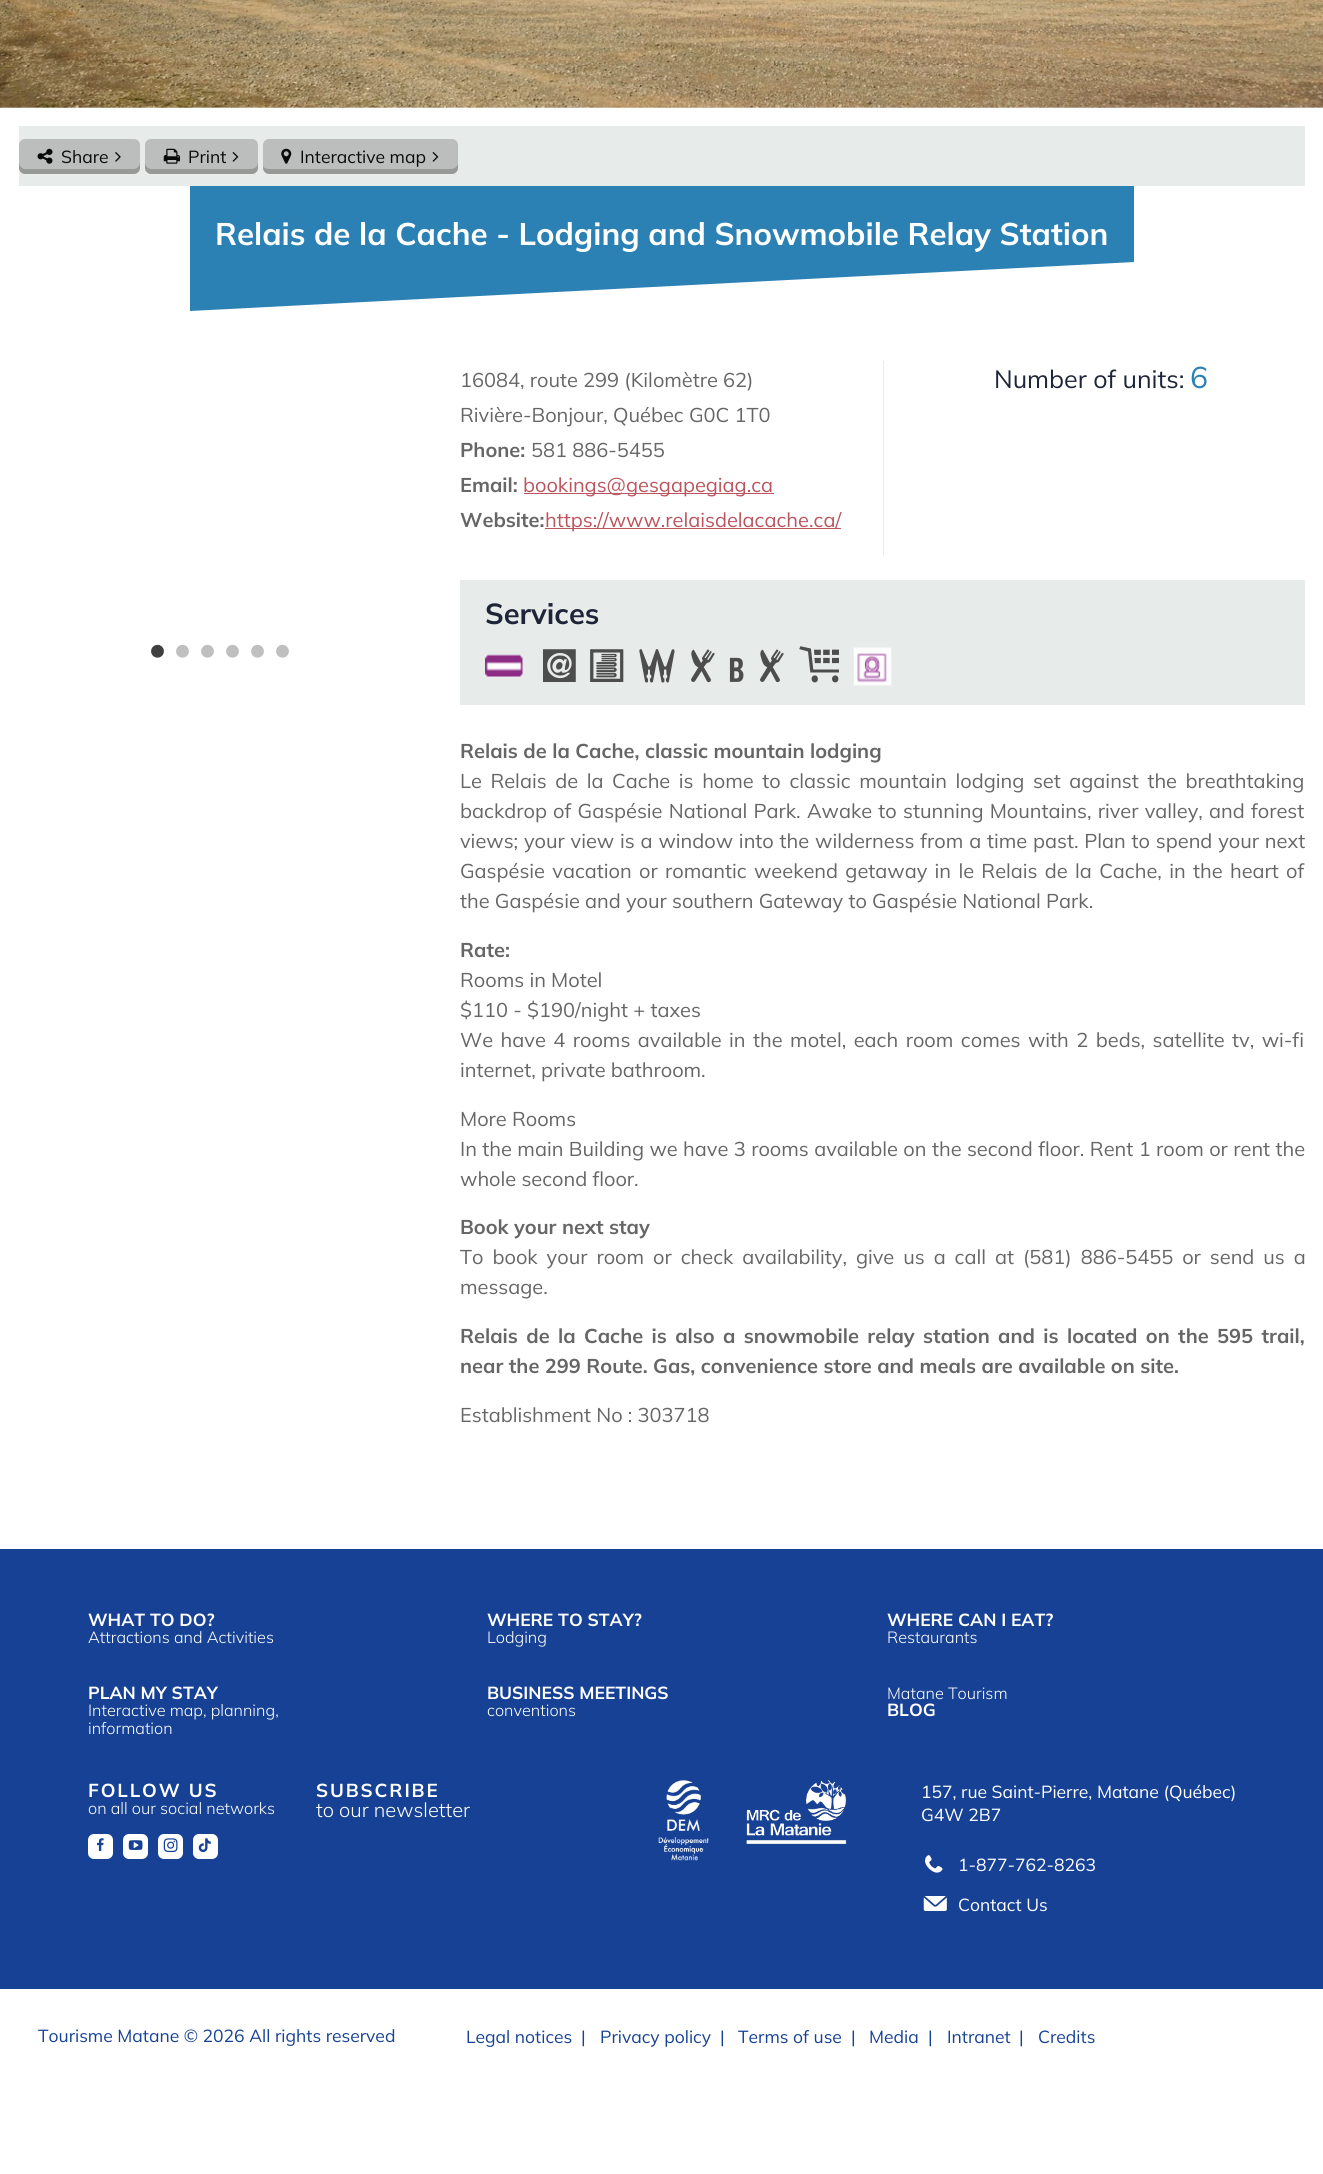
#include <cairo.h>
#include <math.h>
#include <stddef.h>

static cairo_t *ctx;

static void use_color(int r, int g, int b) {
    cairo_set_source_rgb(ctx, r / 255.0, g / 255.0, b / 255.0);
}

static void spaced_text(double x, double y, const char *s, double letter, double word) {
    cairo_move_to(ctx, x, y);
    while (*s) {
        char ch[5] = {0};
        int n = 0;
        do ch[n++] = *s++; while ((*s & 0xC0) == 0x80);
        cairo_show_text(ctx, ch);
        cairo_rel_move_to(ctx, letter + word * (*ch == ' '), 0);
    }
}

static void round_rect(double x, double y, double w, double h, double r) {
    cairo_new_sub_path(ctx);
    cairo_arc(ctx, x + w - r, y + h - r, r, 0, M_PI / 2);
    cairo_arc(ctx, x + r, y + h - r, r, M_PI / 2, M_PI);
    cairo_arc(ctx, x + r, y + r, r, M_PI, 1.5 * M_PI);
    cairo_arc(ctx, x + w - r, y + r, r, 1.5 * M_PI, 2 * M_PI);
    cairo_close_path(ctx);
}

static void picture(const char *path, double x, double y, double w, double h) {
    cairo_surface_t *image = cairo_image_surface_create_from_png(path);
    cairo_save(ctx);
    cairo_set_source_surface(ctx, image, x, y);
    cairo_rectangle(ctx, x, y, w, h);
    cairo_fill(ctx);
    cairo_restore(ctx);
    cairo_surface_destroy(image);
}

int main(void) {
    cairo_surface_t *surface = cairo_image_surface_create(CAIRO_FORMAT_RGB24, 1323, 2174);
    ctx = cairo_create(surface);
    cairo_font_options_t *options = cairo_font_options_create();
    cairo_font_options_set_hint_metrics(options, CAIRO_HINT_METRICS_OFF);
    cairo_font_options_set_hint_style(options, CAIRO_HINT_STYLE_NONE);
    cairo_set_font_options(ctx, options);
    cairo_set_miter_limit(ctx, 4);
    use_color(255, 255, 255);
    cairo_paint(ctx);
    picture("img1.png", 0, 0, 1323, 108);
    use_color(43, 129, 180);
    cairo_new_path(ctx);
    cairo_move_to(ctx, 190, 186);
    cairo_line_to(ctx, 1134, 137);
    cairo_line_to(ctx, 1134, 262);
    cairo_line_to(ctx, 190, 311);
    cairo_close_path(ctx);
    cairo_fill(ctx);
    use_color(231, 235, 233);
    cairo_rectangle(ctx, 19, 126, 1286, 60);
    cairo_fill(ctx);
    use_color(187, 190, 188);
    round_rect(19, 139, 121, 35, 6);
    cairo_fill(ctx);
    cairo_set_source_rgba(ctx, 0.039, 0.039, 0.039, 0.2);
    cairo_new_path(ctx);
    cairo_move_to(ctx, 19, 162);
    cairo_line_to(ctx, 19, 168);
    cairo_curve_to(ctx, 19, 171, 22, 174, 25, 174);
    cairo_line_to(ctx, 134, 174);
    cairo_curve_to(ctx, 137, 174, 140, 171, 140, 168);
    cairo_line_to(ctx, 140, 162);
    cairo_curve_to(ctx, 140, 166, 137, 169, 134, 169);
    cairo_line_to(ctx, 25, 169);
    cairo_curve_to(ctx, 22, 169, 19, 166, 19, 162);
    cairo_close_path(ctx);
    cairo_fill(ctx);
    picture("img2.png", 37, 148, 16, 16);
    cairo_select_font_face(ctx, "Mulish", CAIRO_FONT_SLANT_NORMAL, CAIRO_FONT_WEIGHT_NORMAL);
    cairo_set_font_size(ctx, 17.5);
    use_color(10, 10, 10);
    cairo_move_to(ctx, 61, 163);
    cairo_show_text(ctx, "Share");
    picture("img3.png", 115, 152, 6, 10);
    use_color(187, 190, 188);
    round_rect(145, 139, 113, 35, 6);
    cairo_fill(ctx);
    cairo_set_source_rgba(ctx, 0.039, 0.039, 0.039, 0.2);
    cairo_new_path(ctx);
    cairo_move_to(ctx, 145, 162);
    cairo_line_to(ctx, 145, 168);
    cairo_curve_to(ctx, 145, 171, 148, 174, 151, 174);
    cairo_line_to(ctx, 252, 174);
    cairo_curve_to(ctx, 255, 174, 258, 171, 258, 168);
    cairo_line_to(ctx, 258, 162);
    cairo_curve_to(ctx, 258, 166, 255, 169, 251, 169);
    cairo_line_to(ctx, 151, 169);
    cairo_curve_to(ctx, 148, 169, 145, 166, 145, 162);
    cairo_close_path(ctx);
    cairo_fill(ctx);
    picture("img4.png", 163, 148, 17, 16);
    use_color(10, 10, 10);
    cairo_move_to(ctx, 188, 163);
    cairo_show_text(ctx, "Print");
    picture("img5.png", 232, 152, 7, 10);
    use_color(187, 190, 188);
    round_rect(263, 139, 195, 35, 6);
    cairo_fill(ctx);
    cairo_set_source_rgba(ctx, 0.039, 0.039, 0.039, 0.2);
    cairo_new_path(ctx);
    cairo_move_to(ctx, 263, 166);
    cairo_line_to(ctx, 263, 168);
    cairo_curve_to(ctx, 263, 171, 266, 174, 269, 174);
    cairo_line_to(ctx, 452, 174);
    cairo_curve_to(ctx, 455, 174, 458, 171, 458, 168);
    cairo_line_to(ctx, 458, 162);
    cairo_curve_to(ctx, 458, 166, 455, 169, 451, 169);
    cairo_line_to(ctx, 269, 169);
    cairo_curve_to(ctx, 266, 169, 264, 168, 263, 166);
    cairo_close_path(ctx);
    cairo_fill(ctx);
    picture("img6.png", 281, 148, 11, 16);
    use_color(10, 10, 10);
    cairo_move_to(ctx, 300, 163);
    cairo_show_text(ctx, "Interactive map");
    picture("img5.png", 432, 152, 7, 10);
    cairo_select_font_face(ctx, "Mulish", CAIRO_FONT_SLANT_NORMAL, CAIRO_FONT_WEIGHT_BOLD);
    cairo_set_font_size(ctx, 31.25);
    use_color(255, 255, 255);
    cairo_move_to(ctx, 215, 245);
    cairo_show_text(ctx, "Relais de la Cache - Lodging and Snowmobile Relay Station");
    picture("img7.png", 151, 644, 13, 14);
    picture("img8.png", 176, 644, 13, 14);
    picture("img8.png", 201, 644, 13, 14);
    picture("img8.png", 226, 644, 13, 14);
    picture("img8.png", 251, 644, 13, 14);
    picture("img8.png", 276, 644, 13, 14);
    cairo_select_font_face(ctx, "Mulish", CAIRO_FONT_SLANT_NORMAL, CAIRO_FONT_WEIGHT_NORMAL);
    cairo_set_font_size(ctx, 20);
    use_color(102, 102, 102);
    cairo_move_to(ctx, 460, 387);
    cairo_show_text(ctx, "16084, route 299 (Kilomètre 62)");
    cairo_move_to(ctx, 460, 422);
    cairo_show_text(ctx, "Rivière-Bonjour, Québec G0C 1T0");
    cairo_select_font_face(ctx, "Mulish", CAIRO_FONT_SLANT_NORMAL, CAIRO_FONT_WEIGHT_BOLD);
    cairo_move_to(ctx, 460, 457);
    cairo_show_text(ctx, "Phone:");
    cairo_select_font_face(ctx, "Mulish", CAIRO_FONT_SLANT_NORMAL, CAIRO_FONT_WEIGHT_NORMAL);
    cairo_move_to(ctx, 531, 457);
    cairo_show_text(ctx, "581 886-5455");
    cairo_select_font_face(ctx, "Mulish", CAIRO_FONT_SLANT_NORMAL, CAIRO_FONT_WEIGHT_BOLD);
    cairo_move_to(ctx, 460, 492);
    cairo_show_text(ctx, "Email:");
    use_color(187, 84, 92);
    cairo_rectangle(ctx, 524, 493, 250, 1);
    cairo_fill(ctx);
    cairo_select_font_face(ctx, "Mulish", CAIRO_FONT_SLANT_NORMAL, CAIRO_FONT_WEIGHT_NORMAL);
    cairo_move_to(ctx, 523, 492);
    cairo_show_text(ctx, "bookings@gesgapegiag.ca");
    cairo_select_font_face(ctx, "Mulish", CAIRO_FONT_SLANT_NORMAL, CAIRO_FONT_WEIGHT_BOLD);
    use_color(102, 102, 102);
    cairo_move_to(ctx, 460, 527);
    cairo_show_text(ctx, "Website:");
    use_color(187, 84, 92);
    cairo_rectangle(ctx, 545, 528, 296, 1);
    cairo_fill(ctx);
    cairo_select_font_face(ctx, "Mulish", CAIRO_FONT_SLANT_NORMAL, CAIRO_FONT_WEIGHT_NORMAL);
    cairo_move_to(ctx, 545, 527);
    cairo_show_text(ctx, "https://www.relaisdelacache.ca/");
    use_color(231, 235, 233);
    cairo_rectangle(ctx, 883, 361, 1, 194);
    cairo_fill(ctx);
    cairo_set_font_size(ctx, 25);
    use_color(30, 37, 57);
    cairo_move_to(ctx, 994, 388);
    cairo_show_text(ctx, "Number of units:");
    cairo_set_font_size(ctx, 30);
    use_color(43, 129, 180);
    cairo_move_to(ctx, 1190, 388);
    cairo_show_text(ctx, "6");
    use_color(231, 235, 233);
    cairo_rectangle(ctx, 460, 580, 845, 125);
    cairo_fill(ctx);
    cairo_select_font_face(ctx, "Mulish", CAIRO_FONT_SLANT_NORMAL, CAIRO_FONT_WEIGHT_BOLD);
    cairo_set_font_size(ctx, 29);
    use_color(30, 37, 57);
    cairo_move_to(ctx, 485, 624);
    cairo_show_text(ctx, "Services");
    picture("img9.png", 485, 654, 38, 23);
    cairo_select_font_face(ctx, "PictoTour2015", CAIRO_FONT_SLANT_NORMAL, CAIRO_FONT_WEIGHT_NORMAL);
    cairo_set_font_size(ctx, 56);
    use_color(77, 77, 77);
    cairo_move_to(ctx, 543, 682);
    cairo_show_text(ctx, "K");
    cairo_move_to(ctx, 590, 682);
    cairo_show_text(ctx, "9");
    cairo_move_to(ctx, 639, 682);
    cairo_show_text(ctx, "ß");
    cairo_move_to(ctx, 691, 682);
    cairo_show_text(ctx, "¶");
    cairo_move_to(ctx, 730, 682);
    cairo_show_text(ctx, ",");
    cairo_move_to(ctx, 760, 682);
    cairo_show_text(ctx, "¶");
    cairo_move_to(ctx, 799, 682);
    cairo_show_text(ctx, "ª");
    picture("img10.png", 853, 647, 39, 39);
    cairo_select_font_face(ctx, "Mulish", CAIRO_FONT_SLANT_NORMAL, CAIRO_FONT_WEIGHT_BOLD);
    cairo_set_font_size(ctx, 20);
    use_color(102, 102, 102);
    cairo_move_to(ctx, 460, 758);
    cairo_show_text(ctx, "Relais de la Cache, classic mountain lodging");
    cairo_select_font_face(ctx, "Mulish", CAIRO_FONT_SLANT_NORMAL, CAIRO_FONT_WEIGHT_NORMAL);
    spaced_text(460, 788, "Le Relais de la Cache is home to classic mountain lodging set against the breathtaking", 0, 3.4);
    spaced_text(460, 818, "backdrop of Gaspésie National Park. Awake to stunning Mountains, river valley, and forest", 0, 1);
    spaced_text(460, 848, "views; your view is a window into the wilderness from a time past. Plan to spend your next", 0, 0.6);
    spaced_text(460, 878, "Gaspésie vacation or romantic weekend getaway in le Relais de la Cache, in the heart of", 0, 2.1);
    cairo_move_to(ctx, 460, 908);
    cairo_show_text(ctx, "the Gaspésie and your southern Gateway to Gaspésie National Park.");
    cairo_select_font_face(ctx, "Mulish", CAIRO_FONT_SLANT_NORMAL, CAIRO_FONT_WEIGHT_BOLD);
    cairo_move_to(ctx, 460, 957);
    cairo_show_text(ctx, "Rate:");
    cairo_select_font_face(ctx, "Mulish", CAIRO_FONT_SLANT_NORMAL, CAIRO_FONT_WEIGHT_NORMAL);
    cairo_move_to(ctx, 460, 987);
    cairo_show_text(ctx, "Rooms in Motel");
    cairo_move_to(ctx, 460, 1017);
    cairo_show_text(ctx, "$110 - $190/night + taxes");
    spaced_text(460, 1047, "We have 4 rooms available in the motel, each room comes with 2 beds, satellite tv, wi-fi", 0, 2.25);
    cairo_move_to(ctx, 460, 1077);
    cairo_show_text(ctx, "internet, private bathroom.");
    cairo_move_to(ctx, 460, 1126);
    cairo_show_text(ctx, "More Rooms");
    spaced_text(460, 1156, "In the main Building we have 3 rooms available on the second floor. Rent 1 room or rent the", 0, 0.2);
    cairo_move_to(ctx, 460, 1186);
    cairo_show_text(ctx, "whole second floor.");
    cairo_select_font_face(ctx, "Mulish", CAIRO_FONT_SLANT_NORMAL, CAIRO_FONT_WEIGHT_BOLD);
    cairo_move_to(ctx, 460, 1234);
    cairo_show_text(ctx, "Book your next stay");
    cairo_select_font_face(ctx, "Mulish", CAIRO_FONT_SLANT_NORMAL, CAIRO_FONT_WEIGHT_NORMAL);
    spaced_text(460, 1264, "To book your room or check availability, give us a call at (581) 886-5455 or send us a", 0, 3.75);
    cairo_move_to(ctx, 460, 1294);
    cairo_show_text(ctx, "message.");
    cairo_select_font_face(ctx, "Mulish", CAIRO_FONT_SLANT_NORMAL, CAIRO_FONT_WEIGHT_BOLD);
    spaced_text(460, 1343, "Relais de la Cache is also a snowmobile relay station and is located on the 595 trail,", 0, 2.9);
    cairo_move_to(ctx, 460, 1373);
    cairo_show_text(ctx, "near the 299 Route. Gas, convenience store and meals are available on site.");
    cairo_select_font_face(ctx, "Mulish", CAIRO_FONT_SLANT_NORMAL, CAIRO_FONT_WEIGHT_NORMAL);
    cairo_move_to(ctx, 460, 1422);
    cairo_show_text(ctx, "Establishment No : 303718");
    use_color(22, 65, 148);
    cairo_rectangle(ctx, 0, 1549, 1323, 440);
    cairo_fill(ctx);
    cairo_select_font_face(ctx, "Mulish", CAIRO_FONT_SLANT_NORMAL, CAIRO_FONT_WEIGHT_BOLD);
    cairo_set_font_size(ctx, 17.5);
    use_color(255, 255, 255);
    cairo_move_to(ctx, 88, 1626);
    cairo_show_text(ctx, "WHAT TO DO?");
    cairo_select_font_face(ctx, "Mulish Light", CAIRO_FONT_SLANT_NORMAL, CAIRO_FONT_WEIGHT_NORMAL);
    cairo_set_font_size(ctx, 16.25);
    cairo_move_to(ctx, 88, 1643);
    cairo_show_text(ctx, "Attractions and Activities");
    cairo_select_font_face(ctx, "Mulish", CAIRO_FONT_SLANT_NORMAL, CAIRO_FONT_WEIGHT_BOLD);
    cairo_set_font_size(ctx, 17.5);
    cairo_move_to(ctx, 487, 1626);
    cairo_show_text(ctx, "WHERE TO STAY?");
    cairo_select_font_face(ctx, "Mulish Light", CAIRO_FONT_SLANT_NORMAL, CAIRO_FONT_WEIGHT_NORMAL);
    cairo_set_font_size(ctx, 16.25);
    cairo_move_to(ctx, 487, 1643);
    cairo_show_text(ctx, "Lodging");
    cairo_select_font_face(ctx, "Mulish", CAIRO_FONT_SLANT_NORMAL, CAIRO_FONT_WEIGHT_BOLD);
    cairo_set_font_size(ctx, 17.5);
    cairo_move_to(ctx, 887, 1626);
    cairo_show_text(ctx, "WHERE CAN I EAT?");
    cairo_select_font_face(ctx, "Mulish Light", CAIRO_FONT_SLANT_NORMAL, CAIRO_FONT_WEIGHT_NORMAL);
    cairo_set_font_size(ctx, 16.25);
    cairo_move_to(ctx, 887, 1643);
    cairo_show_text(ctx, "Restaurants");
    cairo_select_font_face(ctx, "Mulish", CAIRO_FONT_SLANT_NORMAL, CAIRO_FONT_WEIGHT_BOLD);
    cairo_set_font_size(ctx, 17.5);
    cairo_move_to(ctx, 88, 1699);
    cairo_show_text(ctx, "PLAN MY STAY");
    cairo_select_font_face(ctx, "Mulish Light", CAIRO_FONT_SLANT_NORMAL, CAIRO_FONT_WEIGHT_NORMAL);
    cairo_set_font_size(ctx, 16.25);
    cairo_move_to(ctx, 88, 1716);
    cairo_show_text(ctx, "Interactive map, planning,");
    cairo_move_to(ctx, 88, 1734);
    cairo_show_text(ctx, "information");
    cairo_select_font_face(ctx, "Mulish", CAIRO_FONT_SLANT_NORMAL, CAIRO_FONT_WEIGHT_BOLD);
    cairo_set_font_size(ctx, 17.5);
    cairo_move_to(ctx, 487, 1699);
    cairo_show_text(ctx, "BUSINESS MEETINGS");
    cairo_select_font_face(ctx, "Mulish Light", CAIRO_FONT_SLANT_NORMAL, CAIRO_FONT_WEIGHT_NORMAL);
    cairo_set_font_size(ctx, 16.25);
    cairo_move_to(ctx, 487, 1716);
    cairo_show_text(ctx, "conventions");
    cairo_move_to(ctx, 887, 1699);
    cairo_show_text(ctx, "Matane Tourism");
    cairo_select_font_face(ctx, "Mulish", CAIRO_FONT_SLANT_NORMAL, CAIRO_FONT_WEIGHT_BOLD);
    cairo_set_font_size(ctx, 17.5);
    cairo_move_to(ctx, 887, 1716);
    cairo_show_text(ctx, "BLOG");
    cairo_set_font_size(ctx, 18.75);
    spaced_text(88, 1797, "FOLLOW US", 1.9, 0);
    cairo_select_font_face(ctx, "Mulish Light", CAIRO_FONT_SLANT_NORMAL, CAIRO_FONT_WEIGHT_NORMAL);
    cairo_set_font_size(ctx, 16.25);
    cairo_move_to(ctx, 88, 1814);
    cairo_show_text(ctx, "on all our social networks");
    round_rect(88, 1834, 25, 25, 6);
    cairo_fill(ctx);
    picture("img11.png", 97, 1838, 7, 13);
    round_rect(123, 1834, 25, 25, 6);
    cairo_fill(ctx);
    picture("img12.png", 128, 1840, 15, 10);
    round_rect(158, 1834, 25, 25, 6);
    cairo_fill(ctx);
    picture("img13.png", 163, 1838, 15, 15);
    round_rect(193, 1834, 25, 25, 6);
    cairo_fill(ctx);
    picture("img14.png", 198, 1838, 13, 15);
    cairo_select_font_face(ctx, "Mulish", CAIRO_FONT_SLANT_NORMAL, CAIRO_FONT_WEIGHT_BOLD);
    cairo_set_font_size(ctx, 18.75);
    spaced_text(316, 1797, "SUBSCRIBE", 1.9, 0);
    cairo_select_font_face(ctx, "Mulish Light", CAIRO_FONT_SLANT_NORMAL, CAIRO_FONT_WEIGHT_NORMAL);
    cairo_set_font_size(ctx, 20);
    cairo_move_to(ctx, 316, 1817);
    cairo_show_text(ctx, "to our newsletter");
    picture("img15.png", 658, 1780, 51, 81);
    picture("img16.png", 746, 1780, 101, 64);
    cairo_select_font_face(ctx, "Mulish", CAIRO_FONT_SLANT_NORMAL, CAIRO_FONT_WEIGHT_NORMAL);
    cairo_set_font_size(ctx, 17.5);
    cairo_move_to(ctx, 921, 1798);
    cairo_show_text(ctx, "157, rue Saint-Pierre, Matane (Québec)");
    cairo_move_to(ctx, 921, 1821);
    cairo_show_text(ctx, "G4W 2B7");
    picture("img17.png", 925, 1855, 18, 18);
    cairo_move_to(ctx, 958, 1871);
    cairo_show_text(ctx, "1-877-762-8263");
    picture("img18.png", 923, 1896, 24, 15);
    cairo_move_to(ctx, 958, 1911);
    cairo_show_text(ctx, "Contact Us");
    use_color(22, 65, 148);
    cairo_move_to(ctx, 38, 2042);
    cairo_show_text(ctx, "Tourisme Matane © 2026 All rights reserved");
    cairo_move_to(ctx, 466, 2043);
    cairo_show_text(ctx, "Legal notices");
    cairo_move_to(ctx, 581, 2043);
    cairo_show_text(ctx, "|");
    cairo_move_to(ctx, 600, 2043);
    cairo_show_text(ctx, "Privacy policy");
    cairo_move_to(ctx, 720, 2043);
    cairo_show_text(ctx, "|");
    cairo_move_to(ctx, 738, 2043);
    cairo_show_text(ctx, "Terms of use");
    cairo_move_to(ctx, 851, 2043);
    cairo_show_text(ctx, "|");
    cairo_move_to(ctx, 869, 2043);
    cairo_show_text(ctx, "Media");
    cairo_move_to(ctx, 928, 2043);
    cairo_show_text(ctx, "|");
    cairo_move_to(ctx, 947, 2043);
    cairo_show_text(ctx, "Intranet");
    cairo_move_to(ctx, 1019, 2043);
    cairo_show_text(ctx, "|");
    cairo_move_to(ctx, 1038, 2043);
    cairo_show_text(ctx, "Credits");
    cairo_surface_write_to_png(surface, "result.png");
    cairo_font_options_destroy(options);
    cairo_destroy(ctx);
    cairo_surface_destroy(surface);
    return 0;
}
